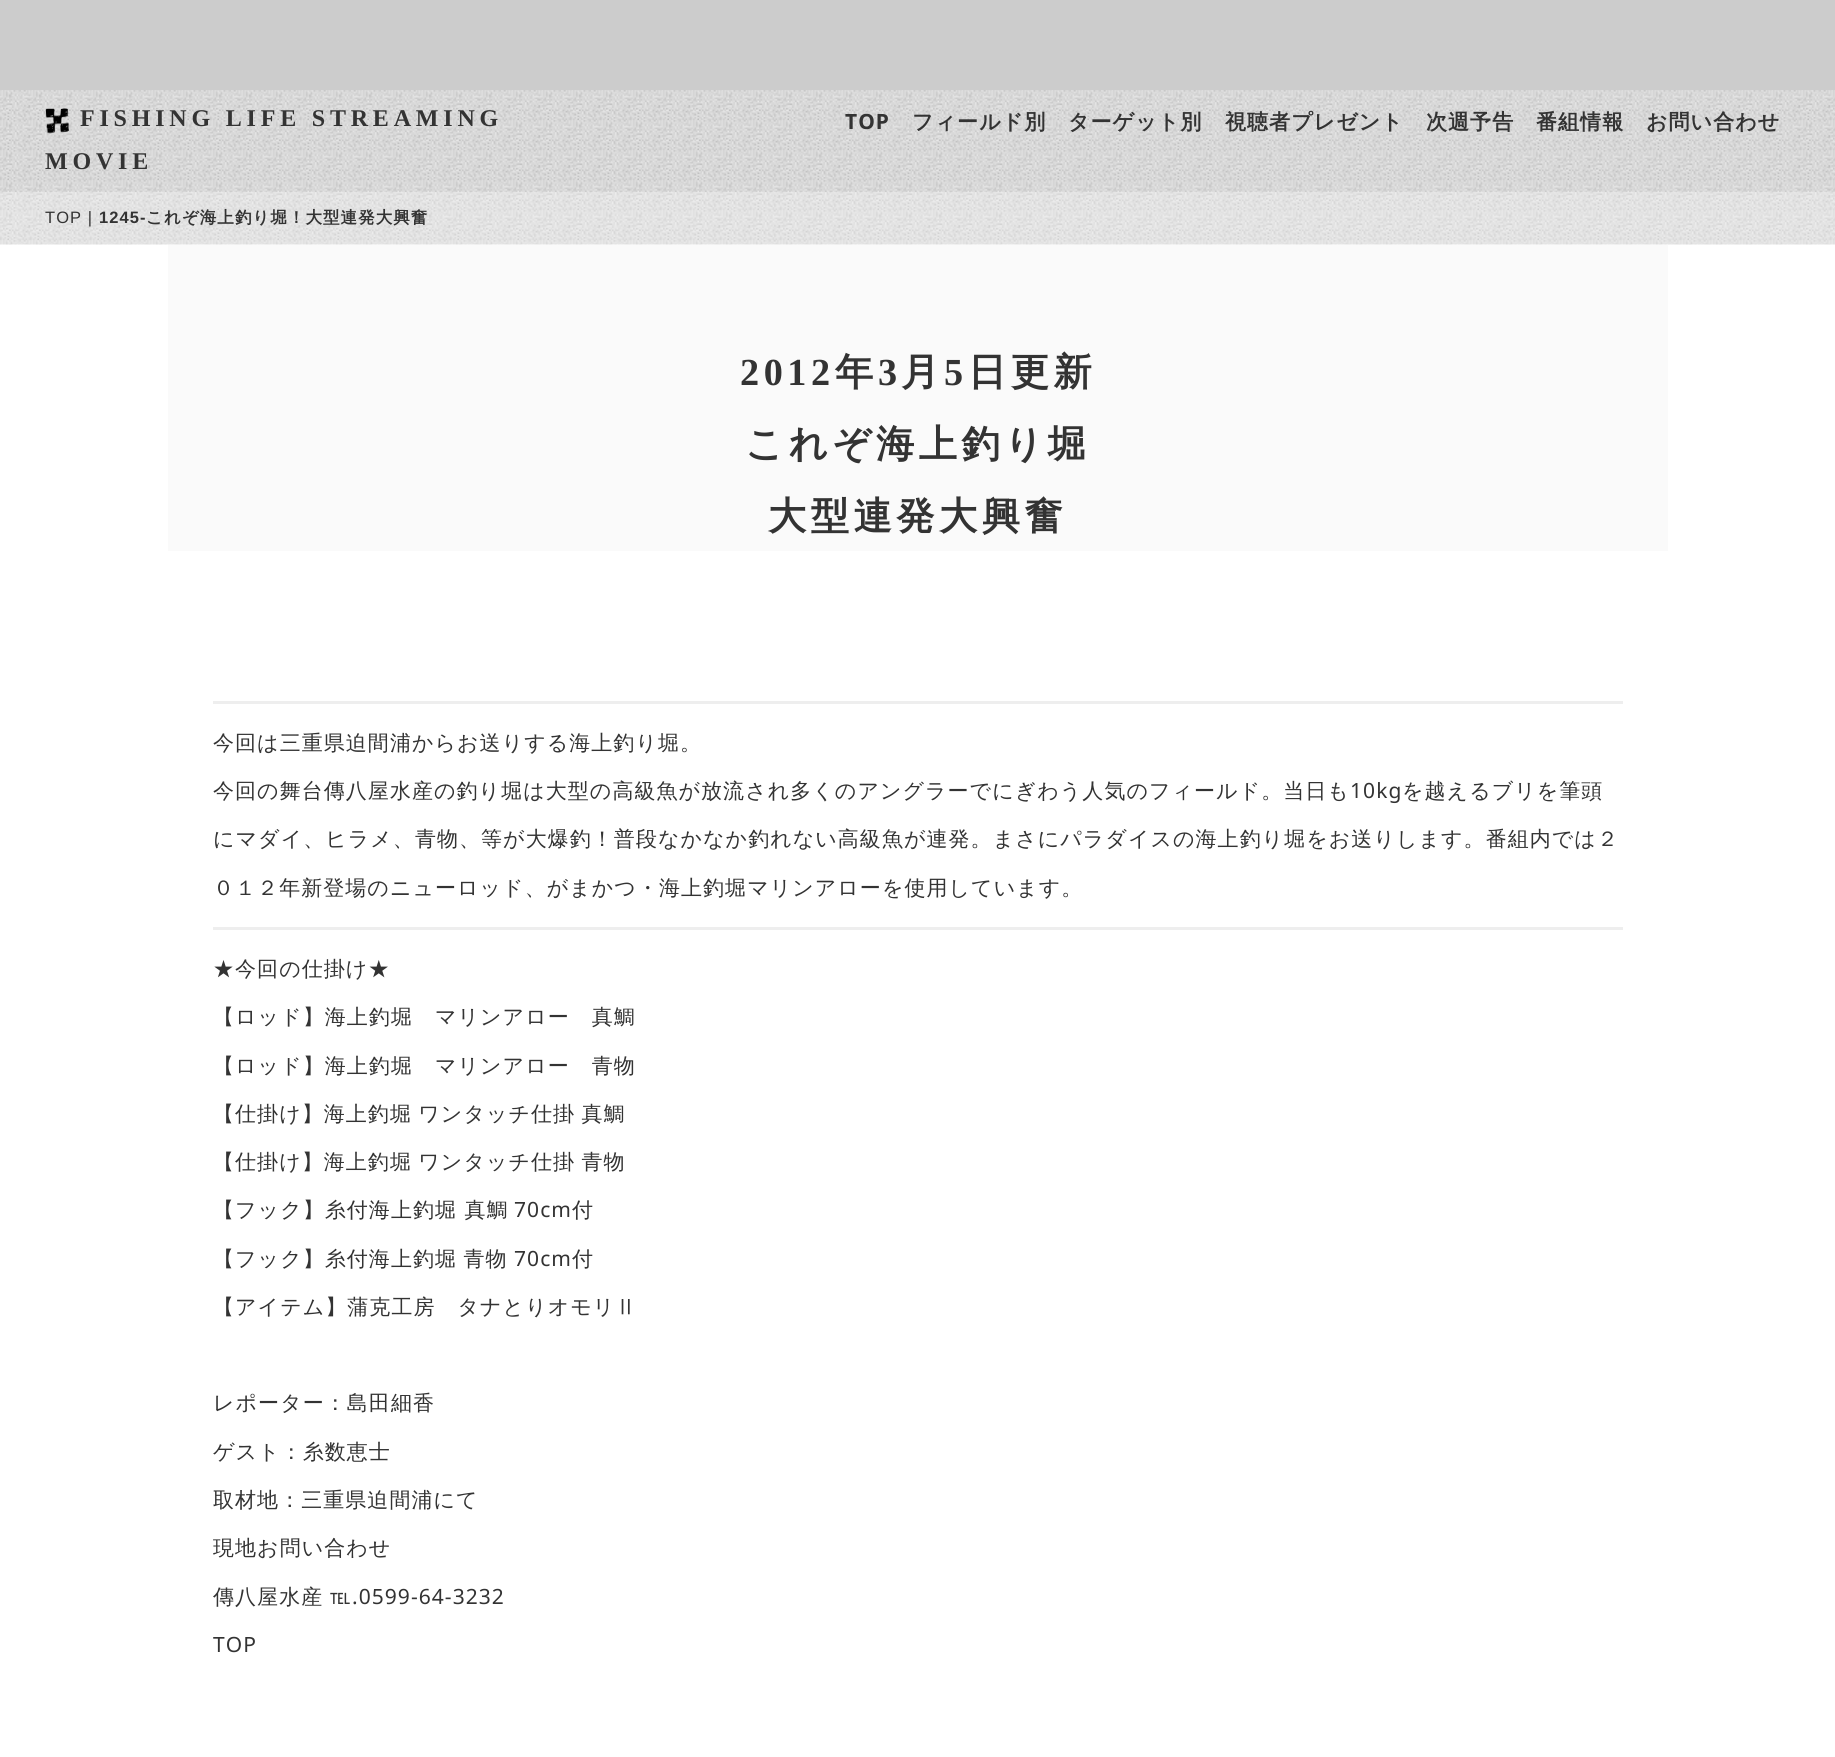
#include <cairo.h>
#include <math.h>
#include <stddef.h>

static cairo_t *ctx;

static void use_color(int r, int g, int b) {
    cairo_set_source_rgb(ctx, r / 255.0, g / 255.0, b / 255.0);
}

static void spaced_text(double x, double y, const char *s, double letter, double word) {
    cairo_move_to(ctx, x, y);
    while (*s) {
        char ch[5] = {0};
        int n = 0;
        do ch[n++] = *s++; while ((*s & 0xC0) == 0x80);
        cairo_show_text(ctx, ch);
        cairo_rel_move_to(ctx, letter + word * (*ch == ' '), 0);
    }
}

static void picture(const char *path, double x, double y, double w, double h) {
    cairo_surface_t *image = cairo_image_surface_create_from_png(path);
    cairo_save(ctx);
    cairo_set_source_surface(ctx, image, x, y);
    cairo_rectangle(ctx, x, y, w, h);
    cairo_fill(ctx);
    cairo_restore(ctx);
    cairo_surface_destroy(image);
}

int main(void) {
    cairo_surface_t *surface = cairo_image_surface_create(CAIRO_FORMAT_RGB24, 1835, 1757);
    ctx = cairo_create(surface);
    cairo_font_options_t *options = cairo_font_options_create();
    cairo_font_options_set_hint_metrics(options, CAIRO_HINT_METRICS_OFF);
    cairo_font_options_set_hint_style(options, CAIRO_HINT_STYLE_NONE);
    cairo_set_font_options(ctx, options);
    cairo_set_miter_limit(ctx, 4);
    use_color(255, 255, 255);
    cairo_paint(ctx);
    picture("img1.png", 0, 90, 1835, 155);
    use_color(204, 204, 204);
    cairo_rectangle(ctx, 0, 0, 1835, 90);
    cairo_fill(ctx);
    picture("img2.png", 0, 90, 1835, 102);
    picture("img3.png", 45, 108, 24, 26);
    cairo_select_font_face(ctx, "Liberation Serif", CAIRO_FONT_SLANT_NORMAL, CAIRO_FONT_WEIGHT_BOLD);
    cairo_set_font_size(ctx, 24);
    use_color(51, 51, 51);
    spaced_text(80, 126, "FISHING LIFE STREAMING", 4.8, 0);
    spaced_text(45, 169, "MOVIE", 4.8, 0);
    cairo_select_font_face(ctx, "Noto Sans", CAIRO_FONT_SLANT_NORMAL, CAIRO_FONT_WEIGHT_BOLD);
    cairo_set_font_size(ctx, 21);
    spaced_text(845, 129, "TOP", 1.05, 0);
    cairo_select_font_face(ctx, "WenQuanYi Zen Hei", CAIRO_FONT_SLANT_NORMAL, CAIRO_FONT_WEIGHT_BOLD);
    spaced_text(912, 129, "フィールド別", 1.05, 0);
    spaced_text(1068, 129, "ターゲット別", 1.05, 0);
    spaced_text(1225, 129, "視聴者プレゼント", 1.05, 0);
    spaced_text(1426, 129, "次週予告", 1.05, 0);
    spaced_text(1536, 129, "番組情報", 1.05, 0);
    spaced_text(1646, 129, "お問い合わせ", 1.05, 0);
    cairo_select_font_face(ctx, "Liberation Sans", CAIRO_FONT_SLANT_NORMAL, CAIRO_FONT_WEIGHT_NORMAL);
    cairo_set_font_size(ctx, 16.5);
    spaced_text(45, 223, "TOP |", 1.05, 0);
    cairo_select_font_face(ctx, "Liberation Sans", CAIRO_FONT_SLANT_NORMAL, CAIRO_FONT_WEIGHT_BOLD);
    spaced_text(99, 223, "1245-", 1.05, 0);
    cairo_select_font_face(ctx, "WenQuanYi Zen Hei", CAIRO_FONT_SLANT_NORMAL, CAIRO_FONT_WEIGHT_BOLD);
    spaced_text(146, 223, "これぞ海上釣り堀！大型連発大興奮", 1.05, 0);
    use_color(250, 250, 250);
    cairo_rectangle(ctx, 168, 245, 1500, 306);
    cairo_fill(ctx);
    cairo_select_font_face(ctx, "Liberation Serif", CAIRO_FONT_SLANT_NORMAL, CAIRO_FONT_WEIGHT_BOLD);
    cairo_set_font_size(ctx, 38.25);
    use_color(51, 51, 51);
    spaced_text(740, 385, "2012", 4.5, 0);
    cairo_select_font_face(ctx, "WenQuanYi Zen Hei", CAIRO_FONT_SLANT_NORMAL, CAIRO_FONT_WEIGHT_BOLD);
    spaced_text(835, 385, "年", 4.5, 0);
    cairo_select_font_face(ctx, "Liberation Serif", CAIRO_FONT_SLANT_NORMAL, CAIRO_FONT_WEIGHT_BOLD);
    spaced_text(878, 385, "3", 4.5, 0);
    cairo_select_font_face(ctx, "WenQuanYi Zen Hei", CAIRO_FONT_SLANT_NORMAL, CAIRO_FONT_WEIGHT_BOLD);
    spaced_text(901, 385, "月", 4.5, 0);
    cairo_select_font_face(ctx, "Liberation Serif", CAIRO_FONT_SLANT_NORMAL, CAIRO_FONT_WEIGHT_BOLD);
    spaced_text(944, 385, "5", 4.5, 0);
    cairo_select_font_face(ctx, "WenQuanYi Zen Hei", CAIRO_FONT_SLANT_NORMAL, CAIRO_FONT_WEIGHT_BOLD);
    spaced_text(968, 385, "日更新", 4.5, 0);
    spaced_text(745, 457, "これぞ海上釣り堀", 4.5, 0);
    spaced_text(768, 529, "大型連発大興奮", 4.5, 0);
    use_color(238, 238, 238);
    cairo_rectangle(ctx, 213, 701, 1410, 3);
    cairo_fill(ctx);
    cairo_select_font_face(ctx, "WenQuanYi Zen Hei Medium", CAIRO_FONT_SLANT_NORMAL, CAIRO_FONT_WEIGHT_NORMAL);
    cairo_set_font_size(ctx, 21);
    use_color(51, 51, 51);
    spaced_text(213, 750, "今回は三重県迫間浦からお送りする海上釣り堀。", 1.05, 0);
    spaced_text(213, 798, "今回の舞台傳八屋水産の釣り堀は大型の高級魚が放流され多くのアングラーでにぎわう人気のフィールド。当日も", 1.05, 0);
    cairo_select_font_face(ctx, "Noto Sans", CAIRO_FONT_SLANT_NORMAL, CAIRO_FONT_WEIGHT_NORMAL);
    spaced_text(1350, 798, "10kg", 1.05, 0);
    cairo_select_font_face(ctx, "WenQuanYi Zen Hei Medium", CAIRO_FONT_SLANT_NORMAL, CAIRO_FONT_WEIGHT_NORMAL);
    spaced_text(1402, 798, "を越えるブリを筆頭", 1.05, 0);
    spaced_text(213, 846, "にマダイ、ヒラメ、青物、等が大爆釣！普段なかなか釣れない高級魚が連発。まさにパラダイスの海上釣り堀をお送りします。番組内では２", 1.05, 0);
    spaced_text(213, 895, "０１２年新登場のニューロッド、がまかつ・海上釣堀マリンアローを使用しています。", 1.05, 0);
    use_color(238, 238, 238);
    cairo_rectangle(ctx, 213, 927, 1410, 3);
    cairo_fill(ctx);
    use_color(51, 51, 51);
    spaced_text(213, 976, "★今回の仕掛け★", 1.05, 0);
    spaced_text(213, 1024, "【ロッド】海上釣堀　マリンアロー　真鯛", 1.05, 0);
    spaced_text(213, 1073, "【ロッド】海上釣堀　マリンアロー　青物", 1.05, 0);
    spaced_text(213, 1121, "【仕掛け】海上釣堀 ワンタッチ仕掛 真鯛", 1.05, -1);
    spaced_text(213, 1169, "【仕掛け】海上釣堀 ワンタッチ仕掛 青物", 1.05, -1);
    spaced_text(213, 1217, "【フック】糸付海上釣堀 真鯛", 1.05, 0);
    cairo_select_font_face(ctx, "Noto Sans", CAIRO_FONT_SLANT_NORMAL, CAIRO_FONT_WEIGHT_NORMAL);
    spaced_text(514, 1217, "70cm", 1.05, 0);
    cairo_select_font_face(ctx, "WenQuanYi Zen Hei Medium", CAIRO_FONT_SLANT_NORMAL, CAIRO_FONT_WEIGHT_NORMAL);
    spaced_text(572, 1217, "付", 1.05, 0);
    spaced_text(213, 1266, "【フック】糸付海上釣堀 青物", 1.05, -1);
    cairo_select_font_face(ctx, "Noto Sans", CAIRO_FONT_SLANT_NORMAL, CAIRO_FONT_WEIGHT_NORMAL);
    spaced_text(514, 1266, "70cm", 1.05, 0);
    cairo_select_font_face(ctx, "WenQuanYi Zen Hei Medium", CAIRO_FONT_SLANT_NORMAL, CAIRO_FONT_WEIGHT_NORMAL);
    spaced_text(572, 1266, "付", 1.05, 0);
    spaced_text(213, 1314, "【アイテム】蒲克工房　タナとりオモリⅡ", 1.05, 0);
    spaced_text(213, 1410, "レポーター：島田細香", 1.05, 0);
    spaced_text(213, 1459, "ゲスト：糸数恵士", 1.05, 0);
    spaced_text(213, 1507, "取材地：三重県迫間浦にて", 1.05, 0);
    spaced_text(213, 1555, "現地お問い合わせ", 1.05, 0);
    spaced_text(213, 1604, "傳八屋水産 ℡", 1.05, -1);
    cairo_select_font_face(ctx, "Noto Sans", CAIRO_FONT_SLANT_NORMAL, CAIRO_FONT_WEIGHT_NORMAL);
    spaced_text(352, 1604, ".0599-64-3232", 1.05, 0);
    spaced_text(213, 1652, "TOP", 1.05, 0);
    cairo_surface_write_to_png(surface, "result.png");
    cairo_font_options_destroy(options);
    cairo_destroy(ctx);
    cairo_surface_destroy(surface);
    return 0;
}
